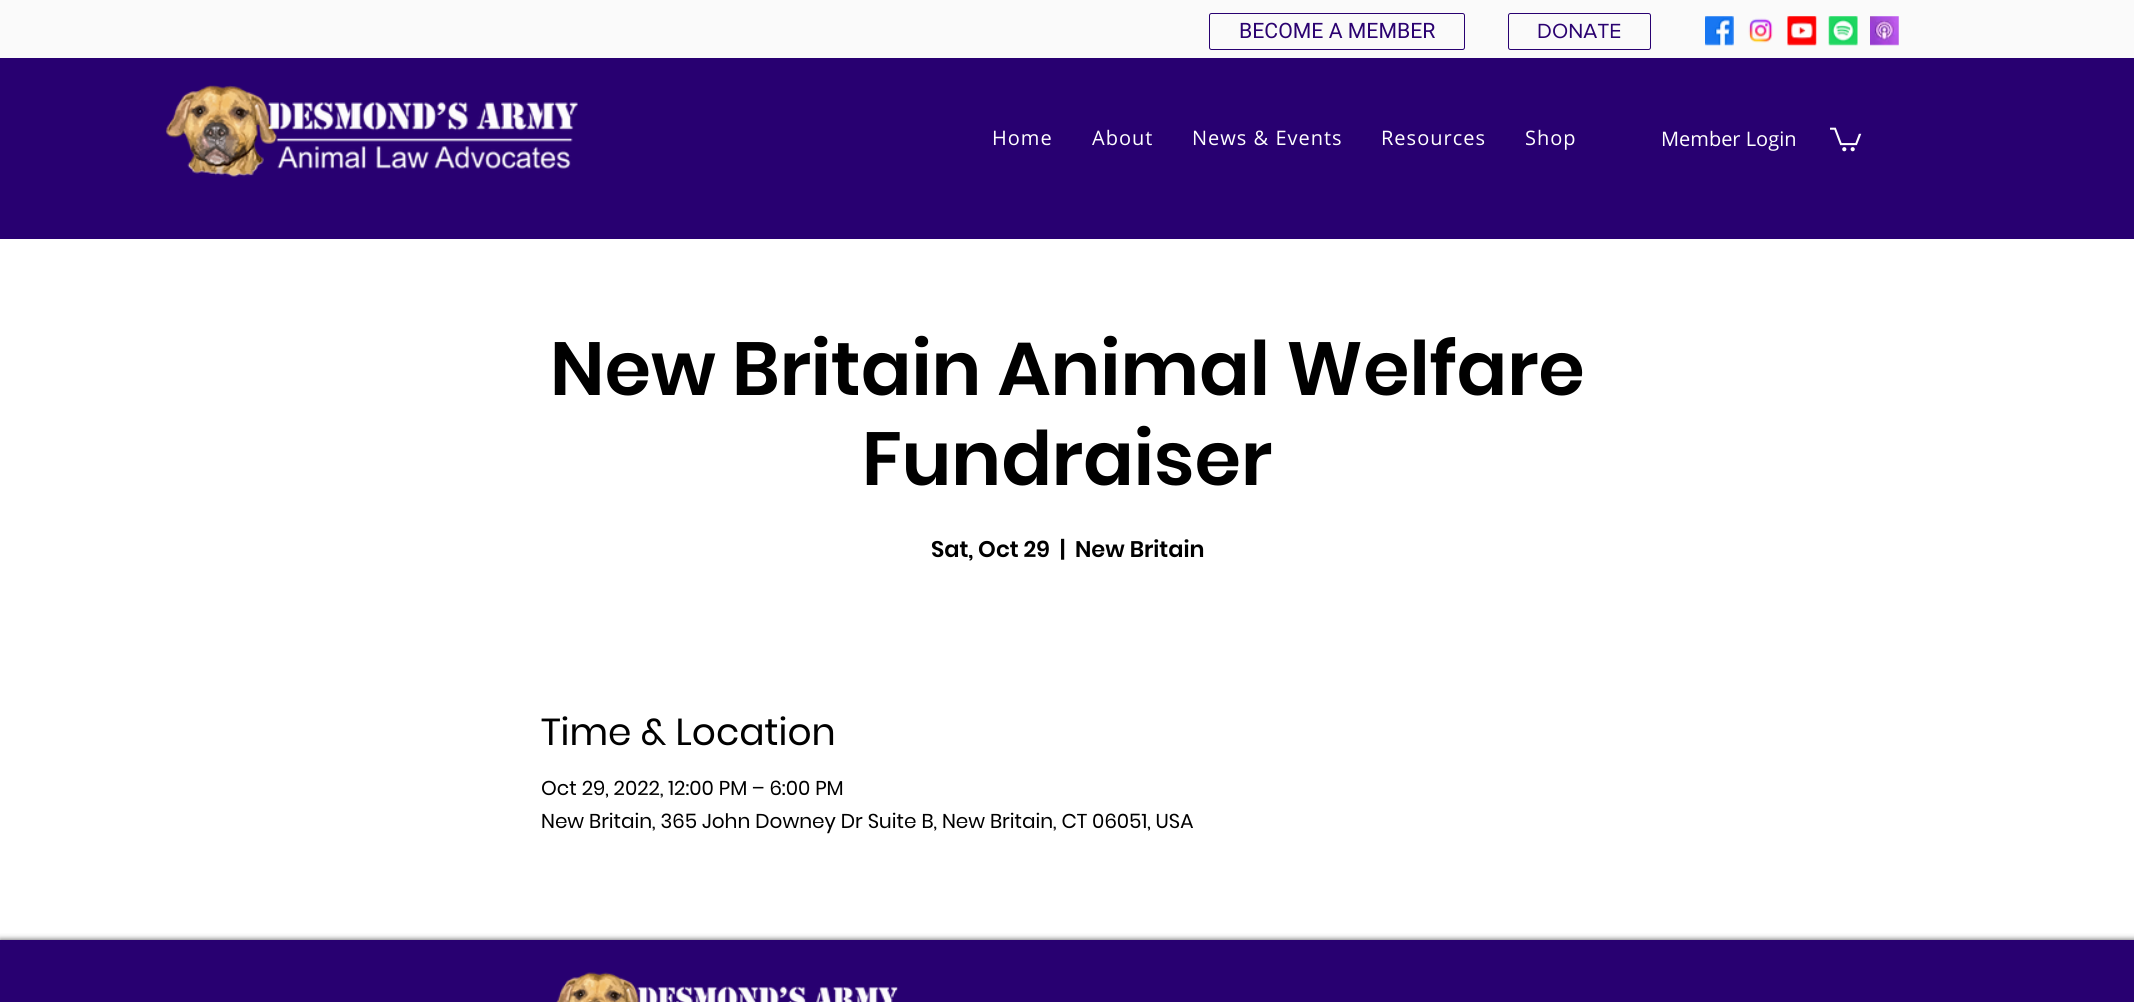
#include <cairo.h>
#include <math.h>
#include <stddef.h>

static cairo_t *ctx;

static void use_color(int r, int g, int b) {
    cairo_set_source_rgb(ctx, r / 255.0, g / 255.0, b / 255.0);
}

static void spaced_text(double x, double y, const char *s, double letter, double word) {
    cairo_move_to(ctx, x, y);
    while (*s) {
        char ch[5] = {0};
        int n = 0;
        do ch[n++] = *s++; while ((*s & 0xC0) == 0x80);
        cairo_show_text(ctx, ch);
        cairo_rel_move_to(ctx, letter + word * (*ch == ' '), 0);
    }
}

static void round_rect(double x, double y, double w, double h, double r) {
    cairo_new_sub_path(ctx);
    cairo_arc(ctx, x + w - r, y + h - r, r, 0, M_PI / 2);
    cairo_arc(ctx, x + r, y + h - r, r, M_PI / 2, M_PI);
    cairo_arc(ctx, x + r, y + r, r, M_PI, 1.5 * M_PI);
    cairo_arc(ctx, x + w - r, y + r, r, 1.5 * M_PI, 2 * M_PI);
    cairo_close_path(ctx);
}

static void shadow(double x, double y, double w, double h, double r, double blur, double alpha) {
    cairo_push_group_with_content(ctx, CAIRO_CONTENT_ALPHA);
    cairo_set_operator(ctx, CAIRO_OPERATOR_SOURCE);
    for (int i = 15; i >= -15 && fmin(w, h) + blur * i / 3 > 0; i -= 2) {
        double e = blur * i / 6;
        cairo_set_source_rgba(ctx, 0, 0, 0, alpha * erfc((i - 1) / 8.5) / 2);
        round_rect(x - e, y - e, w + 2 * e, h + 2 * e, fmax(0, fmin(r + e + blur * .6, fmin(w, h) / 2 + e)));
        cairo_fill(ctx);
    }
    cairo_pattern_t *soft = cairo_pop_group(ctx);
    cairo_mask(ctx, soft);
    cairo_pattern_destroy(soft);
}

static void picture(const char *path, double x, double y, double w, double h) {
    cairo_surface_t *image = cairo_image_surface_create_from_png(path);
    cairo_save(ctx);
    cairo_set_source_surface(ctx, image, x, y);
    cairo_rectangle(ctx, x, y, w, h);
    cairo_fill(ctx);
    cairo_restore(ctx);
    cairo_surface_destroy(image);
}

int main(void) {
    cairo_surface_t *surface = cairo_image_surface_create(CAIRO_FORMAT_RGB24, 2134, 1002);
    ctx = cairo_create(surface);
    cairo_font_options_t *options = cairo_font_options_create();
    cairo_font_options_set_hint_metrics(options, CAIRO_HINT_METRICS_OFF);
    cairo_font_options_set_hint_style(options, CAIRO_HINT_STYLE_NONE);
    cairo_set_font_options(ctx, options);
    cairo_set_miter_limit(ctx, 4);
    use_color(255, 255, 255);
    cairo_paint(ctx);
    use_color(250, 250, 250);
    cairo_rectangle(ctx, 0, 0, 2134, 58);
    cairo_fill(ctx);
    round_rect(1209.5, 13.5, 255, 36, 2);
    use_color(40, 0, 113);
    cairo_set_line_width(ctx, 1);
    cairo_stroke(ctx);
    cairo_select_font_face(ctx, "Roboto", CAIRO_FONT_SLANT_NORMAL, CAIRO_FONT_WEIGHT_NORMAL);
    cairo_set_font_size(ctx, 21.25);
    use_color(42, 1, 112);
    cairo_move_to(ctx, 1239, 38);
    cairo_show_text(ctx, "BECOME A MEMBER");
    round_rect(1508.5, 13.5, 142, 36, 2);
    use_color(40, 0, 113);
    cairo_stroke(ctx);
    cairo_select_font_face(ctx, "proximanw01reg", CAIRO_FONT_SLANT_NORMAL, CAIRO_FONT_WEIGHT_NORMAL);
    use_color(42, 1, 112);
    cairo_move_to(ctx, 1537, 38);
    cairo_show_text(ctx, "DONATE");
    picture("img1.png", 1705, 16, 29, 30);
    picture("img2.png", 1748, 18, 25, 25);
    picture("img3.png", 1787, 16, 30, 30);
    picture("img4.png", 1828, 16, 30, 30);
    picture("img5.png", 1870, 16, 29, 30);
    use_color(40, 0, 113);
    cairo_rectangle(ctx, 0, 68, 2134, 171);
    cairo_fill(ctx);
    picture("img6.png", 165, 85, 413, 92);
    cairo_select_font_face(ctx, "Open Sans", CAIRO_FONT_SLANT_NORMAL, CAIRO_FONT_WEIGHT_NORMAL);
    cairo_set_font_size(ctx, 20);
    use_color(255, 255, 255);
    spaced_text(992, 145, "Home", 1, 0);
    spaced_text(1092, 145, "About", 1, 0);
    spaced_text(1192, 145, "News & Events", 1, 0);
    spaced_text(1381, 145, "Resources", 1, 0);
    spaced_text(1525, 145, "Shop", 1, 0);
    cairo_move_to(ctx, 1661, 146);
    cairo_show_text(ctx, "Member Login");
    picture("img7.png", 1830, 127, 32, 25);
    use_color(40, 0, 113);
    cairo_rectangle(ctx, 0, 58, 2134, 10);
    cairo_fill(ctx);
    cairo_select_font_face(ctx, "Poppins SemiBold", CAIRO_FONT_SLANT_NORMAL, CAIRO_FONT_WEIGHT_NORMAL);
    cairo_set_font_size(ctx, 75);
    use_color(0, 0, 0);
    cairo_move_to(ctx, 550, 395);
    cairo_show_text(ctx, "New Britain Animal Welfare");
    cairo_move_to(ctx, 862, 485);
    cairo_show_text(ctx, "Fundraiser");
    cairo_set_font_size(ctx, 22.5);
    cairo_move_to(ctx, 931, 557);
    cairo_show_text(ctx, "Sat, Oct 29");
    cairo_move_to(ctx, 1060, 557);
    cairo_show_text(ctx, "|");
    cairo_move_to(ctx, 1075, 557);
    cairo_show_text(ctx, "New Britain");
    cairo_select_font_face(ctx, "Poppins", CAIRO_FONT_SLANT_NORMAL, CAIRO_FONT_WEIGHT_NORMAL);
    cairo_set_font_size(ctx, 37.5);
    cairo_move_to(ctx, 541, 745);
    cairo_show_text(ctx, "Time & Location");
    cairo_set_font_size(ctx, 20);
    cairo_move_to(ctx, 541, 795);
    cairo_show_text(ctx, "Oct 29, 2022, 12:00 PM – 6:00 PM");
    cairo_move_to(ctx, 541, 828);
    cairo_show_text(ctx, "New Britain, 365 John Downey Dr Suite B, New Britain, CT 06051, USA");
    use_color(0, 0, 0);
    shadow(0, 940, 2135, 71, 0, 3, 0.7);
    use_color(40, 0, 113);
    cairo_rectangle(ctx, 0, 940, 2134, 62);
    cairo_fill(ctx);
    picture("img8.png", 556, 972, 342, 30);
    cairo_surface_write_to_png(surface, "result.png");
    cairo_font_options_destroy(options);
    cairo_destroy(ctx);
    cairo_surface_destroy(surface);
    return 0;
}
